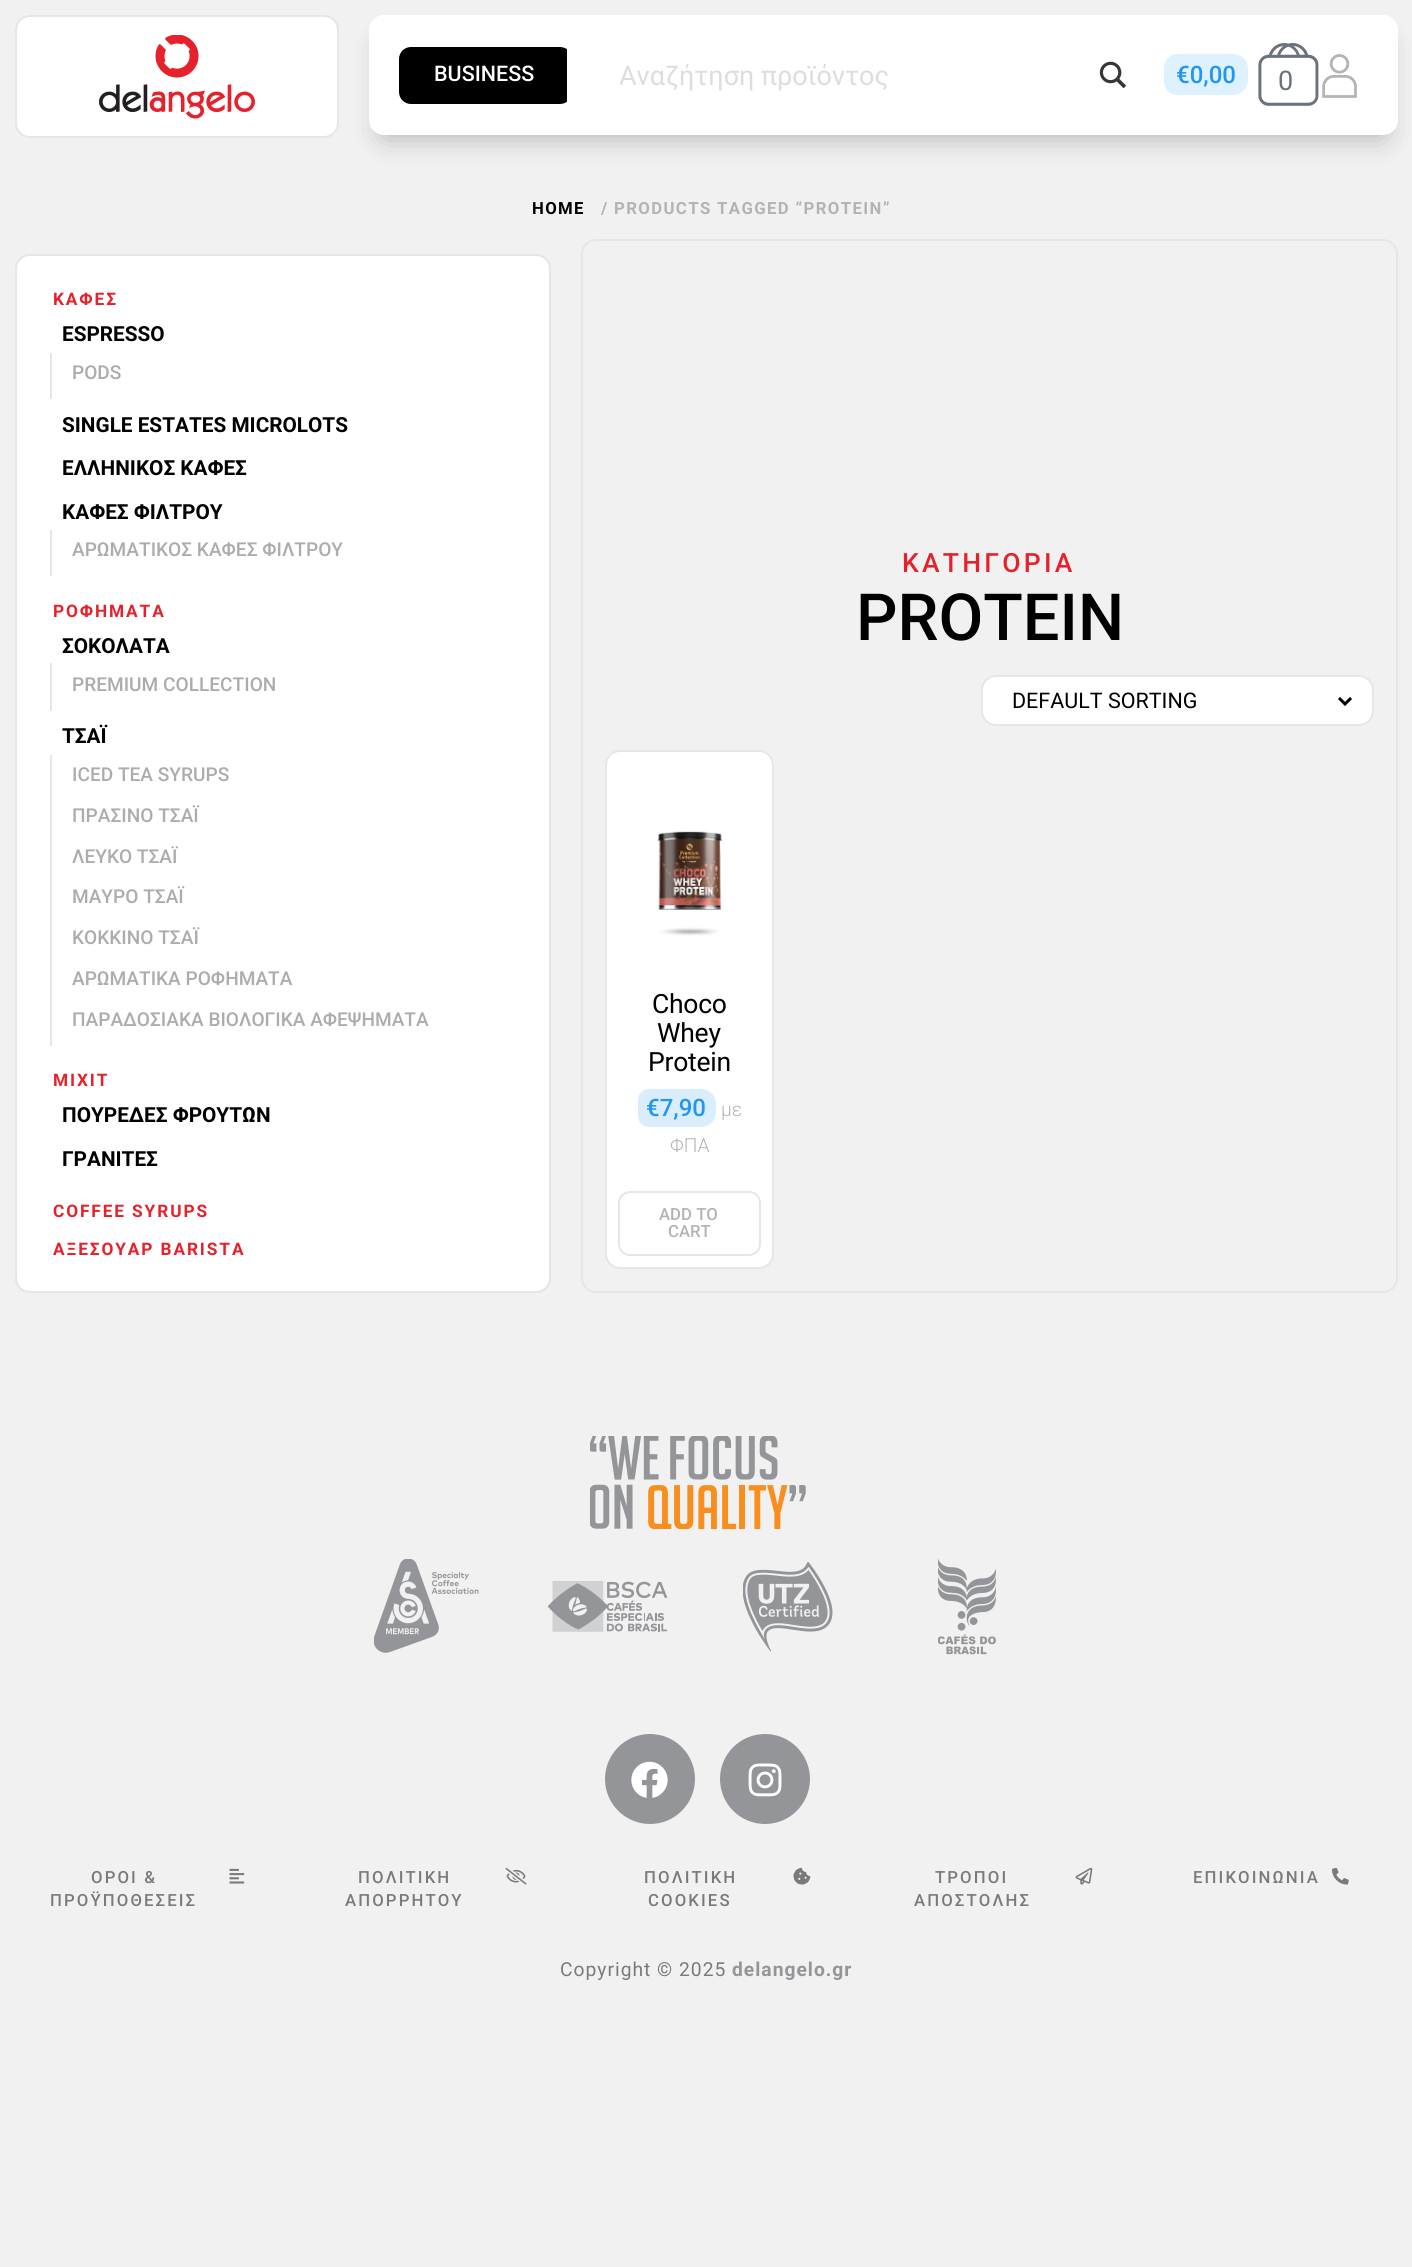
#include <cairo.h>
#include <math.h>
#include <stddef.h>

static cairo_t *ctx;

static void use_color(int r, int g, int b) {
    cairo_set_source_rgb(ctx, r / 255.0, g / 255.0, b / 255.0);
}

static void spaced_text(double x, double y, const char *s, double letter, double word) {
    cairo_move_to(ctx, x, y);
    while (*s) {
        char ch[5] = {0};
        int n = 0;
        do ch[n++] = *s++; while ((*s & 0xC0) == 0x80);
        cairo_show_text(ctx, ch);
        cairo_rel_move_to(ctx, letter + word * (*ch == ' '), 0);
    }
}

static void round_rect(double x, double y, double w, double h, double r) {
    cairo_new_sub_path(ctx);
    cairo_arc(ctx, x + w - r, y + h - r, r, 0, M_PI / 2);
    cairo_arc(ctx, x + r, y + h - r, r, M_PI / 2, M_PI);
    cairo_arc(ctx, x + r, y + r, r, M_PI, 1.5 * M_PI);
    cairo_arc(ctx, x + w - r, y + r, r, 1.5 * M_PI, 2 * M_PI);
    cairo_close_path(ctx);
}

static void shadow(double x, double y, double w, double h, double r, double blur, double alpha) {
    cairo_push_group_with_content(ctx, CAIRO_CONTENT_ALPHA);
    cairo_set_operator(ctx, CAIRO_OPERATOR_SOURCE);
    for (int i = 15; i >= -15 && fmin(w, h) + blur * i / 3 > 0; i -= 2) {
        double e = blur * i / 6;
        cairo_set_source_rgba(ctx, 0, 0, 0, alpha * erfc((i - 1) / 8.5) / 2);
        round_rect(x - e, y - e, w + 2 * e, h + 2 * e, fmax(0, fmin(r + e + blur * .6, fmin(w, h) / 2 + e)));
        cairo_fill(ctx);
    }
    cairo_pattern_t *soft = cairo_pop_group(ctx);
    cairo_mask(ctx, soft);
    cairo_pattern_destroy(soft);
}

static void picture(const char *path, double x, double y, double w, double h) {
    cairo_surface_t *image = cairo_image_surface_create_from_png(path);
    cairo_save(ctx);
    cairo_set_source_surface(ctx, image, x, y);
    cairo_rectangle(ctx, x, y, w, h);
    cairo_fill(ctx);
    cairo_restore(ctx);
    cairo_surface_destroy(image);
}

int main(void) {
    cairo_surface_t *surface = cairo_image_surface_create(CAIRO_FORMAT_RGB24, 1412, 2267);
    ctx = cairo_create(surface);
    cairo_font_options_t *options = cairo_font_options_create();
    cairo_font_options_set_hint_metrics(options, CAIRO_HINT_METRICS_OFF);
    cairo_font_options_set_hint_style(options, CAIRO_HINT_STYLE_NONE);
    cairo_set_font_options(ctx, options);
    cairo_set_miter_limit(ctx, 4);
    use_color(241, 241, 241);
    cairo_paint(ctx);
    use_color(0, 0, 0);
    shadow(384, 45, 999, 90, 0, 15, 0.3);
    use_color(255, 255, 255);
    round_rect(16, 16, 322, 121, 14);
    cairo_fill_preserve(ctx);
    use_color(230, 230, 230);
    cairo_stroke(ctx);
    picture("img1.png", 99, 35, 156, 84);
    use_color(255, 255, 255);
    round_rect(369, 15, 1029, 120, 15);
    cairo_fill(ctx);
    use_color(0, 0, 0);
    round_rect(399, 47, 173, 57, 12);
    cairo_fill(ctx);
    cairo_select_font_face(ctx, "Roboto Medium", CAIRO_FONT_SLANT_NORMAL, CAIRO_FONT_WEIGHT_NORMAL);
    cairo_set_font_size(ctx, 21.5);
    use_color(255, 255, 255);
    cairo_move_to(ctx, 434, 81);
    cairo_show_text(ctx, "BUSINESS");
    round_rect(567, 24, 597, 102, 15);
    cairo_fill(ctx);
    cairo_save(ctx);
    round_rect(620, 54, 465, 42, 15);
    cairo_clip(ctx);
    cairo_select_font_face(ctx, "Roboto", CAIRO_FONT_SLANT_NORMAL, CAIRO_FONT_WEIGHT_NORMAL);
    cairo_set_font_size(ctx, 27);
    use_color(221, 221, 221);
    cairo_move_to(ctx, 619, 85);
    cairo_show_text(ctx, "Αναζήτηση προϊόντος");
    cairo_restore(ctx);
    picture("img2.png", 1099, 61, 28, 28);
    use_color(222, 241, 255);
    cairo_new_path(ctx);
    cairo_move_to(ctx, 1177, 54);
    cairo_line_to(ctx, 1190, 54);
    cairo_line_to(ctx, 1190, 95);
    cairo_line_to(ctx, 1177, 95);
    cairo_curve_to(ctx, 1170, 95, 1164, 89, 1164, 82);
    cairo_line_to(ctx, 1164, 67);
    cairo_curve_to(ctx, 1164, 60, 1170, 54, 1177, 54);
    cairo_close_path(ctx);
    cairo_fill(ctx);
    cairo_new_path(ctx);
    cairo_move_to(ctx, 1190, 54);
    cairo_line_to(ctx, 1233, 54);
    cairo_curve_to(ctx, 1241.5, 54, 1248, 60.5, 1248, 69);
    cairo_line_to(ctx, 1248, 80);
    cairo_curve_to(ctx, 1248, 88.5, 1241.5, 95, 1233, 95);
    cairo_line_to(ctx, 1190, 95);
    cairo_close_path(ctx);
    cairo_fill(ctx);
    cairo_set_font_size(ctx, 24);
    use_color(33, 150, 243);
    cairo_move_to(ctx, 1176, 83);
    cairo_show_text(ctx, "€0,00");
    picture("img3.png", 1258, 43, 61, 63);
    cairo_select_font_face(ctx, "Roboto", CAIRO_FONT_SLANT_NORMAL, CAIRO_FONT_WEIGHT_NORMAL);
    cairo_set_font_size(ctx, 27);
    use_color(105, 114, 125);
    cairo_move_to(ctx, 1278, 90);
    cairo_show_text(ctx, "0");
    picture("img4.png", 1322, 54, 35, 44);
    cairo_select_font_face(ctx, "Roboto", CAIRO_FONT_SLANT_NORMAL, CAIRO_FONT_WEIGHT_BOLD);
    cairo_set_font_size(ctx, 16.75);
    use_color(0, 0, 0);
    spaced_text(532, 214, "HOME", 1.35, 0);
    use_color(179, 179, 179);
    spaced_text(601, 214, "/ PRODUCTS TAGGED “PROTEIN”", 1.35, 0);
    round_rect(16, 255, 534, 1037, 14);
    use_color(230, 230, 230);
    cairo_stroke(ctx);
    use_color(255, 255, 255);
    round_rect(16, 255, 534, 1037, 14);
    cairo_fill_preserve(ctx);
    use_color(230, 230, 230);
    cairo_stroke(ctx);
    cairo_set_font_size(ctx, 17.25);
    use_color(231, 33, 43);
    spaced_text(53, 305, "ΚΑΦΕΣ", 1.9, 0);
    cairo_set_font_size(ctx, 20.75);
    use_color(0, 0, 0);
    cairo_move_to(ctx, 62, 341);
    cairo_show_text(ctx, "ESPRESSO");
    use_color(230, 230, 230);
    cairo_rectangle(ctx, 50, 353, 2, 46);
    cairo_fill(ctx);
    cairo_select_font_face(ctx, "Roboto Medium", CAIRO_FONT_SLANT_NORMAL, CAIRO_FONT_WEIGHT_NORMAL);
    cairo_set_font_size(ctx, 19.1);
    use_color(172, 172, 172);
    cairo_move_to(ctx, 72, 379);
    cairo_show_text(ctx, "PODS");
    cairo_select_font_face(ctx, "Roboto", CAIRO_FONT_SLANT_NORMAL, CAIRO_FONT_WEIGHT_BOLD);
    cairo_set_font_size(ctx, 20.75);
    use_color(0, 0, 0);
    cairo_move_to(ctx, 62, 432);
    cairo_show_text(ctx, "SINGLE ESTATES MICROLOTS");
    cairo_move_to(ctx, 62, 475);
    cairo_show_text(ctx, "ΕΛΛΗΝΙΚΟΣ ΚΑΦΕΣ");
    cairo_move_to(ctx, 62, 519);
    cairo_show_text(ctx, "ΚΑΦΕΣ ΦΙΛΤΡΟΥ");
    use_color(230, 230, 230);
    cairo_rectangle(ctx, 50, 530, 2, 46);
    cairo_fill(ctx);
    cairo_select_font_face(ctx, "Roboto Medium", CAIRO_FONT_SLANT_NORMAL, CAIRO_FONT_WEIGHT_NORMAL);
    cairo_set_font_size(ctx, 19.1);
    use_color(172, 172, 172);
    cairo_move_to(ctx, 72, 556);
    cairo_show_text(ctx, "ΑΡΩΜΑΤΙΚΟΣ ΚΑΦΕΣ ΦΙΛΤΡΟΥ");
    cairo_select_font_face(ctx, "Roboto", CAIRO_FONT_SLANT_NORMAL, CAIRO_FONT_WEIGHT_BOLD);
    cairo_set_font_size(ctx, 17.25);
    use_color(231, 33, 43);
    spaced_text(53, 617, "ΡΟΦΗΜΑΤΑ", 1.9, 0);
    cairo_set_font_size(ctx, 20.75);
    use_color(0, 0, 0);
    cairo_move_to(ctx, 62, 653);
    cairo_show_text(ctx, "ΣΟΚΟΛΑΤΑ");
    use_color(230, 230, 230);
    cairo_rectangle(ctx, 50, 663, 2, 48);
    cairo_fill(ctx);
    cairo_select_font_face(ctx, "Roboto Medium", CAIRO_FONT_SLANT_NORMAL, CAIRO_FONT_WEIGHT_NORMAL);
    cairo_set_font_size(ctx, 19.1);
    use_color(172, 172, 172);
    cairo_move_to(ctx, 72, 691);
    cairo_show_text(ctx, "PREMIUM COLLECTION");
    cairo_select_font_face(ctx, "Roboto", CAIRO_FONT_SLANT_NORMAL, CAIRO_FONT_WEIGHT_BOLD);
    cairo_set_font_size(ctx, 20.75);
    use_color(0, 0, 0);
    cairo_move_to(ctx, 62, 743);
    cairo_show_text(ctx, "ΤΣΑΪ");
    use_color(230, 230, 230);
    cairo_rectangle(ctx, 50, 755, 2, 291);
    cairo_fill(ctx);
    cairo_select_font_face(ctx, "Roboto Medium", CAIRO_FONT_SLANT_NORMAL, CAIRO_FONT_WEIGHT_NORMAL);
    cairo_set_font_size(ctx, 19.1);
    use_color(172, 172, 172);
    cairo_move_to(ctx, 72, 781);
    cairo_show_text(ctx, "ICED TEA SYRUPS");
    cairo_move_to(ctx, 72, 822);
    cairo_show_text(ctx, "ΠΡΑΣΙΝΟ ΤΣΑΪ");
    cairo_move_to(ctx, 72, 863);
    cairo_show_text(ctx, "ΛΕΥΚΟ ΤΣΑΪ");
    cairo_move_to(ctx, 72, 903);
    cairo_show_text(ctx, "ΜΑΥΡΟ ΤΣΑΪ");
    cairo_move_to(ctx, 72, 944);
    cairo_show_text(ctx, "ΚΟΚΚΙΝΟ ΤΣΑΪ");
    cairo_move_to(ctx, 72, 985);
    cairo_show_text(ctx, "ΑΡΩΜΑΤΙΚΑ ΡΟΦΗΜΑΤΑ");
    cairo_move_to(ctx, 72, 1026);
    cairo_show_text(ctx, "ΠΑΡΑΔΟΣΙΑΚΑ ΒΙΟΛΟΓΙΚΑ ΑΦΕΨΗΜΑΤΑ");
    cairo_select_font_face(ctx, "Roboto", CAIRO_FONT_SLANT_NORMAL, CAIRO_FONT_WEIGHT_BOLD);
    cairo_set_font_size(ctx, 17.25);
    use_color(231, 33, 43);
    spaced_text(53, 1086, "MIXIT", 1.9, 0);
    cairo_set_font_size(ctx, 20.75);
    use_color(0, 0, 0);
    cairo_move_to(ctx, 62, 1122);
    cairo_show_text(ctx, "ΠΟΥΡΕΔΕΣ ΦΡΟΥΤΩΝ");
    cairo_move_to(ctx, 62, 1166);
    cairo_show_text(ctx, "ΓΡΑΝΙΤΕΣ");
    cairo_set_font_size(ctx, 17.25);
    use_color(231, 33, 43);
    spaced_text(53, 1217, "COFFEE SYRUPS", 1.9, 0);
    spaced_text(53, 1255, "ΑΞΕΣΟΥΑΡ BARISTA", 1.9, 0);
    round_rect(582, 240, 815, 1052, 14);
    use_color(230, 230, 230);
    cairo_stroke(ctx);
    cairo_select_font_face(ctx, "Roboto Medium", CAIRO_FONT_SLANT_NORMAL, CAIRO_FONT_WEIGHT_NORMAL);
    cairo_set_font_size(ctx, 26.5);
    use_color(231, 33, 43);
    spaced_text(902, 572, "ΚΑΤΗΓΟΡΙΑ", 3.25, 0);
    cairo_set_font_size(ctx, 65);
    use_color(0, 0, 0);
    cairo_move_to(ctx, 856, 640);
    cairo_show_text(ctx, "PROTEIN");
    use_color(255, 255, 255);
    round_rect(982, 676, 391, 49, 14);
    cairo_fill_preserve(ctx);
    use_color(230, 230, 230);
    cairo_stroke(ctx);
    cairo_new_path(ctx);
    cairo_move_to(ctx, 1339, 698);
    cairo_line_to(ctx, 1345, 704);
    cairo_line_to(ctx, 1351, 698);
    use_color(0, 0, 0);
    cairo_set_line_width(ctx, 3);
    cairo_stroke(ctx);
    cairo_select_font_face(ctx, "Roboto", CAIRO_FONT_SLANT_NORMAL, CAIRO_FONT_WEIGHT_NORMAL);
    cairo_set_font_size(ctx, 21.5);
    cairo_move_to(ctx, 1012, 708);
    cairo_show_text(ctx, "DEFAULT SORTING");
    use_color(255, 255, 255);
    round_rect(606, 751, 167, 517, 14);
    cairo_fill_preserve(ctx);
    use_color(230, 230, 230);
    cairo_set_line_width(ctx, 2);
    cairo_stroke(ctx);
    picture("img5.png", 657, 831, 65, 105);
    cairo_set_font_size(ctx, 26.5);
    use_color(0, 0, 0);
    spaced_text(652, 1013, "Choco", -0.25, 0);
    spaced_text(657, 1042, "Whey", -0.25, 0);
    spaced_text(648, 1071, "Protein", -0.25, 0);
    use_color(217, 237, 253);
    cairo_new_path(ctx);
    cairo_move_to(ctx, 649, 1089);
    cairo_line_to(ctx, 660, 1089);
    cairo_line_to(ctx, 660, 1127);
    cairo_line_to(ctx, 649, 1127);
    cairo_curve_to(ctx, 643, 1127, 638, 1122, 638, 1116);
    cairo_line_to(ctx, 638, 1100);
    cairo_curve_to(ctx, 638, 1094, 643, 1089, 649, 1089);
    cairo_close_path(ctx);
    cairo_fill(ctx);
    cairo_new_path(ctx);
    cairo_move_to(ctx, 660, 1089);
    cairo_line_to(ctx, 701, 1089);
    cairo_curve_to(ctx, 709.5, 1089, 716, 1095.5, 716, 1104);
    cairo_line_to(ctx, 716, 1112);
    cairo_curve_to(ctx, 716, 1120.5, 709.5, 1127, 701, 1127);
    cairo_line_to(ctx, 660, 1127);
    cairo_close_path(ctx);
    cairo_fill(ctx);
    cairo_select_font_face(ctx, "Roboto Medium", CAIRO_FONT_SLANT_NORMAL, CAIRO_FONT_WEIGHT_NORMAL);
    cairo_set_font_size(ctx, 24);
    use_color(33, 150, 243);
    cairo_move_to(ctx, 646, 1116);
    cairo_show_text(ctx, "€7,90");
    cairo_select_font_face(ctx, "Roboto Light", CAIRO_FONT_SLANT_NORMAL, CAIRO_FONT_WEIGHT_NORMAL);
    cairo_set_font_size(ctx, 19.25);
    use_color(179, 179, 179);
    cairo_move_to(ctx, 721, 1116);
    cairo_show_text(ctx, "με");
    cairo_move_to(ctx, 670, 1152);
    cairo_show_text(ctx, "ΦΠΑ");
    round_rect(619, 1192, 141, 63, 11);
    use_color(230, 230, 230);
    cairo_stroke(ctx);
    cairo_select_font_face(ctx, "Roboto Medium", CAIRO_FONT_SLANT_NORMAL, CAIRO_FONT_WEIGHT_NORMAL);
    cairo_set_font_size(ctx, 16.75);
    use_color(179, 179, 179);
    cairo_move_to(ctx, 659, 1220);
    cairo_show_text(ctx, "ADD TO");
    cairo_move_to(ctx, 668, 1237);
    cairo_show_text(ctx, "CART");
    picture("img6.png", 590, 1436, 216, 93);
    picture("img7.png", 374, 1559, 105, 94);
    picture("img8.png", 548, 1581, 120, 51);
    picture("img9.png", 743, 1562, 90, 90);
    picture("img10.png", 938, 1559, 58, 96);
    use_color(147, 149, 152);
    cairo_arc(ctx, 650, 1779, 45, 0, 2 * M_PI);
    cairo_fill(ctx);
    picture("img11.png", 631, 1761, 37, 37);
    cairo_arc(ctx, 765, 1779, 45, 0, 2 * M_PI);
    cairo_fill(ctx);
    picture("img12.png", 748, 1763, 34, 34);
    use_color(122, 122, 122);
    spaced_text(91, 1883, "ΟΡΟΙ &", 2.1, 0);
    spaced_text(50, 1906, "ΠΡΟΫΠΟΘΕΣΕΙΣ", 2.1, 0);
    picture("img13.png", 229, 1868, 16, 16);
    spaced_text(358, 1883, "ΠΟΛΙΤΙΚΗ", 2.1, 0);
    spaced_text(345, 1906, "ΑΠΟΡΡΗΤΟΥ", 2.1, 0);
    picture("img14.png", 505, 1867, 22, 18);
    spaced_text(644, 1883, "ΠΟΛΙΤΙΚΗ", 2.1, 0);
    spaced_text(648, 1906, "COOKIES", 2.1, 0);
    picture("img15.png", 793, 1867, 18, 18);
    spaced_text(935, 1883, "ΤΡΟΠΟΙ", 2.1, 0);
    spaced_text(914, 1906, "ΑΠΟΣΤΟΛΗΣ", 2.1, 0);
    picture("img16.png", 1075, 1867, 18, 18);
    spaced_text(1193, 1883, "ΕΠΙΚΟΙΝΩΝΙΑ", 2.1, 0);
    picture("img17.png", 1332, 1867, 17, 18);
    cairo_select_font_face(ctx, "Roboto", CAIRO_FONT_SLANT_NORMAL, CAIRO_FONT_WEIGHT_NORMAL);
    cairo_set_font_size(ctx, 19.25);
    spaced_text(560, 1976, "Copyright © 2025", 1, 0);
    cairo_select_font_face(ctx, "Roboto", CAIRO_FONT_SLANT_NORMAL, CAIRO_FONT_WEIGHT_BOLD);
    use_color(147, 149, 152);
    spaced_text(732, 1976, "delangelo.gr", 1, 0);
    cairo_surface_write_to_png(surface, "result.png");
    cairo_font_options_destroy(options);
    cairo_destroy(ctx);
    cairo_surface_destroy(surface);
    return 0;
}
